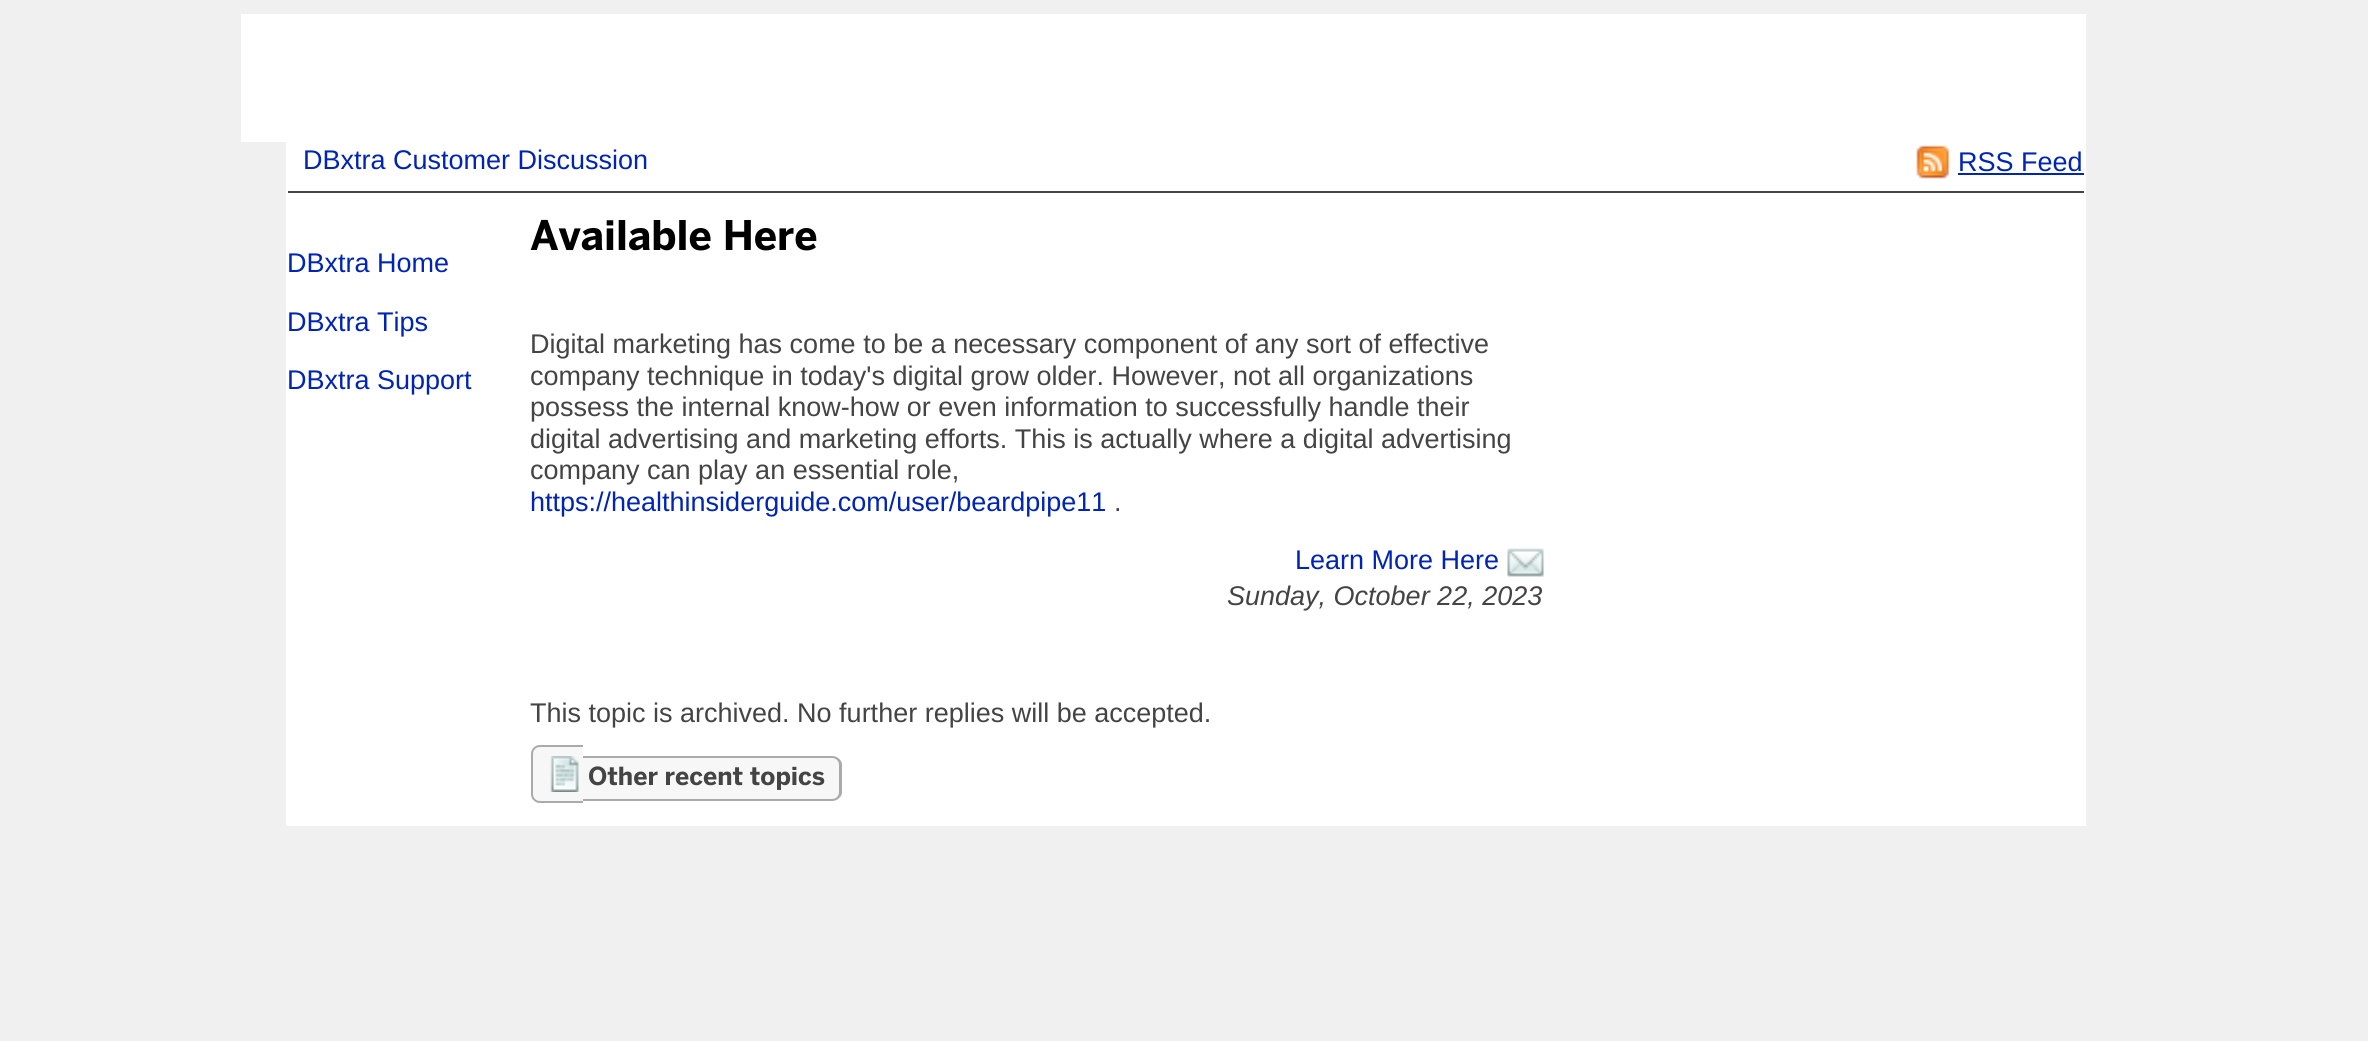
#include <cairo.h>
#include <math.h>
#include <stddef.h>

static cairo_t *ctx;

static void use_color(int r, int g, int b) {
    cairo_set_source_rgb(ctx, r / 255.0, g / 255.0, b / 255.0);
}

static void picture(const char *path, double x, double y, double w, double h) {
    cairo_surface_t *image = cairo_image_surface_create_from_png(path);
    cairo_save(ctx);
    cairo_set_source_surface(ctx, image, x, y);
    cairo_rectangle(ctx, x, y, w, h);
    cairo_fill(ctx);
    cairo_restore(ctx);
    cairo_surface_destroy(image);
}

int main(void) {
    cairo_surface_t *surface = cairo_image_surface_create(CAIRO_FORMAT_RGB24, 2368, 1041);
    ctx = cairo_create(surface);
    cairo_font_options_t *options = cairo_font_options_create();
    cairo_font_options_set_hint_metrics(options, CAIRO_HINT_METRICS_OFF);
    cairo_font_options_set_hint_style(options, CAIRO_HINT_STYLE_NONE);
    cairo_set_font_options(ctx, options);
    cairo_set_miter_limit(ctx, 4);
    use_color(240, 240, 240);
    cairo_paint(ctx);
    use_color(255, 255, 255);
    cairo_rectangle(ctx, 286, 142, 1800, 684);
    cairo_fill(ctx);
    cairo_rectangle(ctx, 241, 14, 1845, 128);
    cairo_fill(ctx);
    cairo_select_font_face(ctx, "Liberation Sans", CAIRO_FONT_SLANT_NORMAL, CAIRO_FONT_WEIGHT_NORMAL);
    cairo_set_font_size(ctx, 27);
    use_color(0, 36, 179);
    cairo_move_to(ctx, 303, 169);
    cairo_show_text(ctx, "DBxtra Customer Discussion");
    picture("img1.png", 1916, 145, 34, 34);
    cairo_move_to(ctx, 1958, 171);
    cairo_show_text(ctx, "RSS Feed");
    cairo_rectangle(ctx, 1958, 173, 126, 2);
    cairo_fill(ctx);
    use_color(68, 68, 68);
    cairo_rectangle(ctx, 288, 191, 1796, 2);
    cairo_fill(ctx);
    use_color(0, 36, 179);
    cairo_move_to(ctx, 287, 272);
    cairo_show_text(ctx, "DBxtra Home");
    cairo_move_to(ctx, 287, 331);
    cairo_show_text(ctx, "DBxtra Tips");
    cairo_move_to(ctx, 287, 389);
    cairo_show_text(ctx, "DBxtra Support");
    cairo_select_font_face(ctx, "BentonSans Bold", CAIRO_FONT_SLANT_NORMAL, CAIRO_FONT_WEIGHT_BOLD);
    cairo_set_font_size(ctx, 40.5);
    use_color(0, 0, 0);
    cairo_move_to(ctx, 530, 250);
    cairo_show_text(ctx, "Available Here");
    cairo_select_font_face(ctx, "Liberation Sans", CAIRO_FONT_SLANT_NORMAL, CAIRO_FONT_WEIGHT_NORMAL);
    cairo_set_font_size(ctx, 27);
    use_color(68, 68, 68);
    cairo_move_to(ctx, 530, 353);
    cairo_show_text(ctx, "Digital marketing has come to be a necessary component of any sort of effective");
    cairo_move_to(ctx, 530, 385);
    cairo_show_text(ctx, "company technique in today's digital grow older. However, not all organizations");
    cairo_move_to(ctx, 530, 416);
    cairo_show_text(ctx, "possess the internal know-how or even information to successfully handle their");
    cairo_move_to(ctx, 530, 448);
    cairo_show_text(ctx, "digital advertising and marketing efforts. This is actually where a digital advertising");
    cairo_move_to(ctx, 530, 479);
    cairo_show_text(ctx, "company can play an essential role,");
    use_color(0, 36, 179);
    cairo_move_to(ctx, 530, 511);
    cairo_show_text(ctx, "https://healthinsiderguide.com/user/beardpipe11");
    use_color(68, 68, 68);
    cairo_move_to(ctx, 1114, 511);
    cairo_show_text(ctx, ".");
    use_color(0, 36, 179);
    cairo_move_to(ctx, 1295, 569);
    cairo_show_text(ctx, "Learn More Here");
    picture("img2.png", 1507, 548, 37, 29);
    cairo_select_font_face(ctx, "Liberation Sans", CAIRO_FONT_SLANT_ITALIC, CAIRO_FONT_WEIGHT_NORMAL);
    use_color(68, 68, 68);
    cairo_move_to(ctx, 1227, 605);
    cairo_show_text(ctx, "Sunday, October 22, 2023");
    cairo_select_font_face(ctx, "Liberation Sans", CAIRO_FONT_SLANT_NORMAL, CAIRO_FONT_WEIGHT_NORMAL);
    cairo_move_to(ctx, 530, 722);
    cairo_show_text(ctx, "This topic is archived. No further replies will be accepted.");
    use_color(247, 247, 247);
    cairo_new_path(ctx);
    cairo_move_to(ctx, 540, 745);
    cairo_line_to(ctx, 583, 745);
    cairo_line_to(ctx, 583, 803);
    cairo_line_to(ctx, 540, 803);
    cairo_curve_to(ctx, 535, 803, 531, 799, 531, 794);
    cairo_line_to(ctx, 531, 754);
    cairo_curve_to(ctx, 531, 749, 535, 745, 540, 745);
    cairo_close_path(ctx);
    cairo_fill(ctx);
    use_color(170, 170, 170);
    cairo_set_fill_rule(ctx, CAIRO_FILL_RULE_EVEN_ODD);
    cairo_new_path(ctx);
    cairo_move_to(ctx, 540, 745);
    cairo_line_to(ctx, 583, 745);
    cairo_line_to(ctx, 583, 803);
    cairo_line_to(ctx, 540, 803);
    cairo_curve_to(ctx, 535, 803, 531, 799, 531, 794);
    cairo_line_to(ctx, 531, 754);
    cairo_curve_to(ctx, 531, 749, 535, 745, 540, 745);
    cairo_close_path(ctx);
    cairo_move_to(ctx, 540, 747);
    cairo_line_to(ctx, 583, 747);
    cairo_line_to(ctx, 583, 801);
    cairo_line_to(ctx, 540, 801);
    cairo_curve_to(ctx, 536, 801, 533, 798, 533, 794);
    cairo_line_to(ctx, 533, 754);
    cairo_curve_to(ctx, 533, 750, 536, 747, 540, 747);
    cairo_close_path(ctx);
    cairo_fill(ctx);
    picture("img3.png", 550, 756, 29, 36);
    use_color(247, 247, 247);
    cairo_new_path(ctx);
    cairo_move_to(ctx, 583, 756);
    cairo_line_to(ctx, 833, 756);
    cairo_curve_to(ctx, 838, 756, 842, 760, 842, 765);
    cairo_line_to(ctx, 842, 792);
    cairo_curve_to(ctx, 842, 797, 838, 801, 833, 801);
    cairo_line_to(ctx, 583, 801);
    cairo_close_path(ctx);
    cairo_fill(ctx);
    use_color(170, 170, 170);
    cairo_new_path(ctx);
    cairo_move_to(ctx, 583, 756);
    cairo_line_to(ctx, 832, 756);
    cairo_curve_to(ctx, 837, 756, 842, 760, 842, 765);
    cairo_line_to(ctx, 842, 792);
    cairo_curve_to(ctx, 842, 797, 837, 801, 832, 801);
    cairo_line_to(ctx, 583, 801);
    cairo_close_path(ctx);
    cairo_move_to(ctx, 583, 758);
    cairo_line_to(ctx, 832, 758);
    cairo_curve_to(ctx, 836, 758, 839, 761, 839, 765);
    cairo_line_to(ctx, 839, 792);
    cairo_curve_to(ctx, 839, 796, 836, 799, 832, 799);
    cairo_line_to(ctx, 583, 799);
    cairo_close_path(ctx);
    cairo_fill(ctx);
    cairo_select_font_face(ctx, "BentonSans Bold", CAIRO_FONT_SLANT_NORMAL, CAIRO_FONT_WEIGHT_BOLD);
    cairo_set_font_size(ctx, 24.75);
    use_color(68, 68, 68);
    cairo_move_to(ctx, 588, 785);
    cairo_show_text(ctx, "Other recent topics");
    cairo_surface_write_to_png(surface, "result.png");
    cairo_font_options_destroy(options);
    cairo_destroy(ctx);
    cairo_surface_destroy(surface);
    return 0;
}
